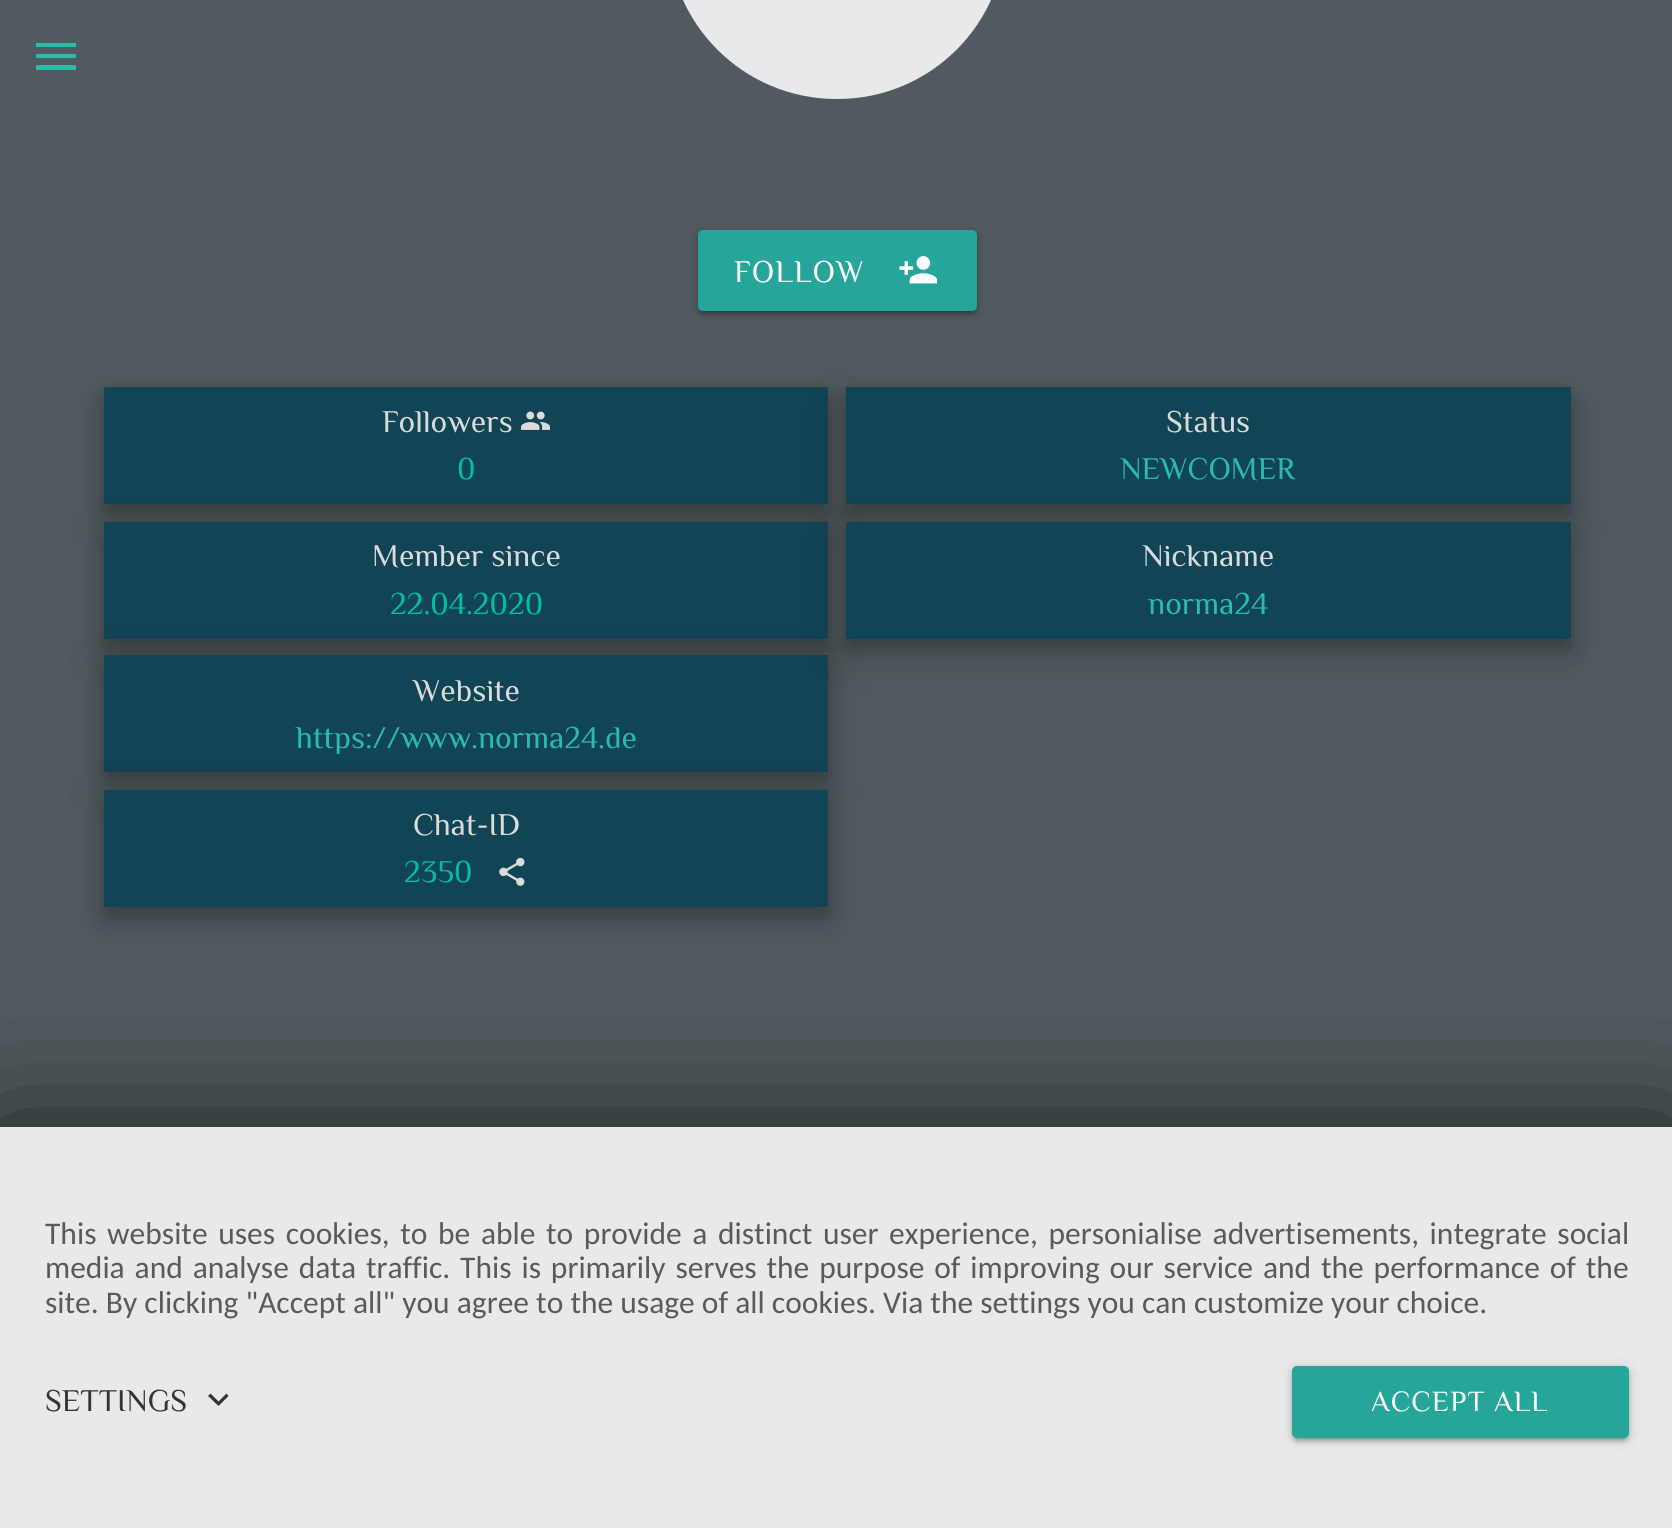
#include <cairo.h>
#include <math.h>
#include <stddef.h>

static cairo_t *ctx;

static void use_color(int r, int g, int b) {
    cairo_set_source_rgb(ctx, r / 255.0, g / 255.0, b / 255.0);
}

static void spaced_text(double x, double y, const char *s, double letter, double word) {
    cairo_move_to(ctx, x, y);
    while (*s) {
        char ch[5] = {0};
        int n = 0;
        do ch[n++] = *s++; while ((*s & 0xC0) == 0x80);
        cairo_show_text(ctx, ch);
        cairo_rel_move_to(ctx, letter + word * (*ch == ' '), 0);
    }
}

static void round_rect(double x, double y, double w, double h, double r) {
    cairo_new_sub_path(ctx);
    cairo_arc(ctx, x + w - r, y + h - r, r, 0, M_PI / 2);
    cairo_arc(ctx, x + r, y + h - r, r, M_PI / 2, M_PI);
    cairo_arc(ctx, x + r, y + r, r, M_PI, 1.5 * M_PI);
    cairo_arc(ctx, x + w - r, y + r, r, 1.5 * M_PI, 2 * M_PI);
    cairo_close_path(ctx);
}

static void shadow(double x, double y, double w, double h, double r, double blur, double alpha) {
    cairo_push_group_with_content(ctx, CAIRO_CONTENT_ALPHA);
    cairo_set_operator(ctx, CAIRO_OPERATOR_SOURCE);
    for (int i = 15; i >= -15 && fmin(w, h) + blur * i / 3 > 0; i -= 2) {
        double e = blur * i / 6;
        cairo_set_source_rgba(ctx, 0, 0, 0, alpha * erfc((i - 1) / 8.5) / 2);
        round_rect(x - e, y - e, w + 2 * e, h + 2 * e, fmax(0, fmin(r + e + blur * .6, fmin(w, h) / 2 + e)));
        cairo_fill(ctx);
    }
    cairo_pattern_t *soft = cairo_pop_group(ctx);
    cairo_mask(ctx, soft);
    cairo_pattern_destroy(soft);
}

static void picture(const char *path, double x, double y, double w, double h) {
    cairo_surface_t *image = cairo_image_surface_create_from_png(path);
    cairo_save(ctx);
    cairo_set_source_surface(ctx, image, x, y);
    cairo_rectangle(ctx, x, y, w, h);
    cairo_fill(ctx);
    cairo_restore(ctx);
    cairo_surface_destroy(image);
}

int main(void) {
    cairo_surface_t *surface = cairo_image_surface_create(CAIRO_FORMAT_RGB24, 1672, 1528);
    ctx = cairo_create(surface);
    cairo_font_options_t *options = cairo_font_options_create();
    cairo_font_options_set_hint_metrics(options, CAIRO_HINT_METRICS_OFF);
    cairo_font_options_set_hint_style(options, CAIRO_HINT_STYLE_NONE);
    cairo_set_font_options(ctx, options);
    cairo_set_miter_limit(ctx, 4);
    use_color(81, 91, 95);
    cairo_paint(ctx);
    use_color(43, 187, 173);
    cairo_new_path(ctx);
    cairo_move_to(ctx, 36, 43);
    cairo_line_to(ctx, 76, 43);
    cairo_line_to(ctx, 76, 47);
    cairo_line_to(ctx, 36, 47);
    cairo_close_path(ctx);
    cairo_move_to(ctx, 36, 58);
    cairo_line_to(ctx, 36, 54);
    cairo_line_to(ctx, 76, 54);
    cairo_line_to(ctx, 76, 58);
    cairo_close_path(ctx);
    cairo_move_to(ctx, 36, 70);
    cairo_line_to(ctx, 36, 65);
    cairo_line_to(ctx, 76, 65);
    cairo_line_to(ctx, 76, 70);
    cairo_close_path(ctx);
    cairo_fill(ctx);
    use_color(231, 233, 234);
    round_rect(668, -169, 338, 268, 168.5);
    cairo_fill(ctx);
    use_color(0, 0, 0);
    shadow(698, 232, 279, 81, 5, 5.5, 0.2);
    shadow(702, 241, 270, 72, 0, 1, 0.12);
    shadow(698, 234, 279, 81, 5, 2, 0.14);
    use_color(38, 166, 154);
    round_rect(698, 230, 279, 81, 5);
    cairo_fill(ctx);
    cairo_select_font_face(ctx, "Philosopher", CAIRO_FONT_SLANT_NORMAL, CAIRO_FONT_WEIGHT_NORMAL);
    cairo_set_font_size(ctx, 31.5);
    use_color(255, 255, 255);
    spaced_text(734, 282, "FOLLOW", 1.1, 0);
    picture("img1.png", 899, 256, 38, 28);
    use_color(0, 0, 0);
    shadow(104, 401, 724, 117, 0, 22.5, 0.19);
    shadow(104, 396, 724, 117, 0, 9, 0.2);
    use_color(17, 68, 85);
    cairo_rectangle(ctx, 104, 387, 724, 117);
    cairo_fill(ctx);
    use_color(219, 219, 219);
    cairo_move_to(ctx, 382, 432);
    cairo_show_text(ctx, "Followers");
    picture("img2.png", 521, 411, 29, 19);
    use_color(0, 191, 165);
    cairo_move_to(ctx, 457, 479);
    cairo_show_text(ctx, "0");
    use_color(0, 0, 0);
    shadow(104, 536, 724, 117, 0, 22.5, 0.19);
    shadow(104, 531, 724, 117, 0, 9, 0.2);
    use_color(17, 68, 85);
    cairo_rectangle(ctx, 104, 522, 724, 117);
    cairo_fill(ctx);
    use_color(219, 219, 219);
    cairo_move_to(ctx, 372, 566);
    cairo_show_text(ctx, "Member since");
    use_color(0, 191, 165);
    cairo_move_to(ctx, 390, 614);
    cairo_show_text(ctx, "22.04.2020");
    use_color(0, 0, 0);
    shadow(104, 668, 724, 117, 0, 22.5, 0.19);
    shadow(104, 664, 724, 117, 0, 9, 0.2);
    use_color(17, 68, 85);
    cairo_rectangle(ctx, 104, 655, 724, 117);
    cairo_fill(ctx);
    use_color(219, 219, 219);
    cairo_move_to(ctx, 413, 701);
    cairo_show_text(ctx, "Website");
    use_color(43, 187, 173);
    cairo_move_to(ctx, 296, 748);
    cairo_show_text(ctx, "https://www.norma24.de");
    use_color(0, 0, 0);
    shadow(104, 803, 724, 117, 0, 22.5, 0.19);
    shadow(104, 799, 724, 117, 0, 9, 0.2);
    use_color(17, 68, 85);
    cairo_rectangle(ctx, 104, 790, 724, 117);
    cairo_fill(ctx);
    use_color(219, 219, 219);
    cairo_move_to(ctx, 413, 835);
    cairo_show_text(ctx, "Chat-ID");
    use_color(0, 191, 165);
    cairo_move_to(ctx, 404, 882);
    cairo_show_text(ctx, "2350");
    picture("img3.png", 499, 857, 26, 29);
    use_color(0, 0, 0);
    shadow(846, 401, 725, 117, 0, 22.5, 0.19);
    shadow(846, 396, 725, 117, 0, 9, 0.2);
    use_color(17, 68, 85);
    cairo_rectangle(ctx, 846, 387, 725, 117);
    cairo_fill(ctx);
    use_color(219, 219, 219);
    cairo_move_to(ctx, 1166, 432);
    cairo_show_text(ctx, "Status");
    use_color(43, 187, 173);
    cairo_move_to(ctx, 1120, 479);
    cairo_show_text(ctx, "NEWCOMER");
    use_color(0, 0, 0);
    shadow(846, 536, 725, 117, 0, 22.5, 0.19);
    shadow(846, 531, 725, 117, 0, 9, 0.2);
    use_color(17, 68, 85);
    cairo_rectangle(ctx, 846, 522, 725, 117);
    cairo_fill(ctx);
    use_color(219, 219, 219);
    cairo_move_to(ctx, 1142, 566);
    cairo_show_text(ctx, "Nickname");
    use_color(43, 187, 173);
    cairo_move_to(ctx, 1148, 614);
    cairo_show_text(ctx, "norma24");
    use_color(0, 0, 0);
    shadow(0, 1150, 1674, 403, 0, 22.5, 0.19);
    shadow(0, 1141, 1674, 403, 0, 67.5, 0.8);
    use_color(231, 233, 234);
    cairo_rectangle(ctx, 0, 1127, 1672, 401);
    cairo_fill(ctx);
    cairo_select_font_face(ctx, "Carlito", CAIRO_FONT_SLANT_NORMAL, CAIRO_FONT_WEIGHT_NORMAL);
    use_color(90, 90, 90);
    spaced_text(45, 1244, "This website uses cookies, to be able to provide a distinct user experience, personialise advertisements, integrate social", 0, 3.5);
    spaced_text(45, 1278, "media and analyse data traffic. This is primarily serves the purpose of improving our service and the performance of the", 0, 2.75);
    cairo_move_to(ctx, 45, 1313);
    cairo_show_text(ctx, "site. By clicking \"Accept all\" you agree to the usage of all cookies. Via the settings you can customize your choice.");
    cairo_select_font_face(ctx, "Philosopher", CAIRO_FONT_SLANT_NORMAL, CAIRO_FONT_WEIGHT_NORMAL);
    use_color(52, 52, 52);
    cairo_move_to(ctx, 45, 1411);
    cairo_show_text(ctx, "SETTINGS");
    cairo_new_path(ctx);
    cairo_move_to(ctx, 210.5, 1393.5);
    cairo_line_to(ctx, 218.5, 1401.5);
    cairo_line_to(ctx, 226.5, 1393.5);
    cairo_line_to(ctx, 228.5, 1396);
    cairo_line_to(ctx, 218.5, 1406);
    cairo_line_to(ctx, 208, 1396);
    cairo_close_path(ctx);
    cairo_fill(ctx);
    use_color(0, 0, 0);
    shadow(1292, 1368, 337, 72, 5, 5.5, 0.2);
    shadow(1296, 1377, 329, 63, 0, 1, 0.12);
    shadow(1292, 1370, 337, 72, 5, 2, 0.14);
    use_color(38, 166, 154);
    round_rect(1292, 1366, 337, 72, 5);
    cairo_fill(ctx);
    cairo_set_font_size(ctx, 29.25);
    use_color(255, 255, 255);
    spaced_text(1371, 1411, "ACCEPT ALL", 1.1, 0);
    cairo_surface_write_to_png(surface, "result.png");
    cairo_font_options_destroy(options);
    cairo_destroy(ctx);
    cairo_surface_destroy(surface);
    return 0;
}
